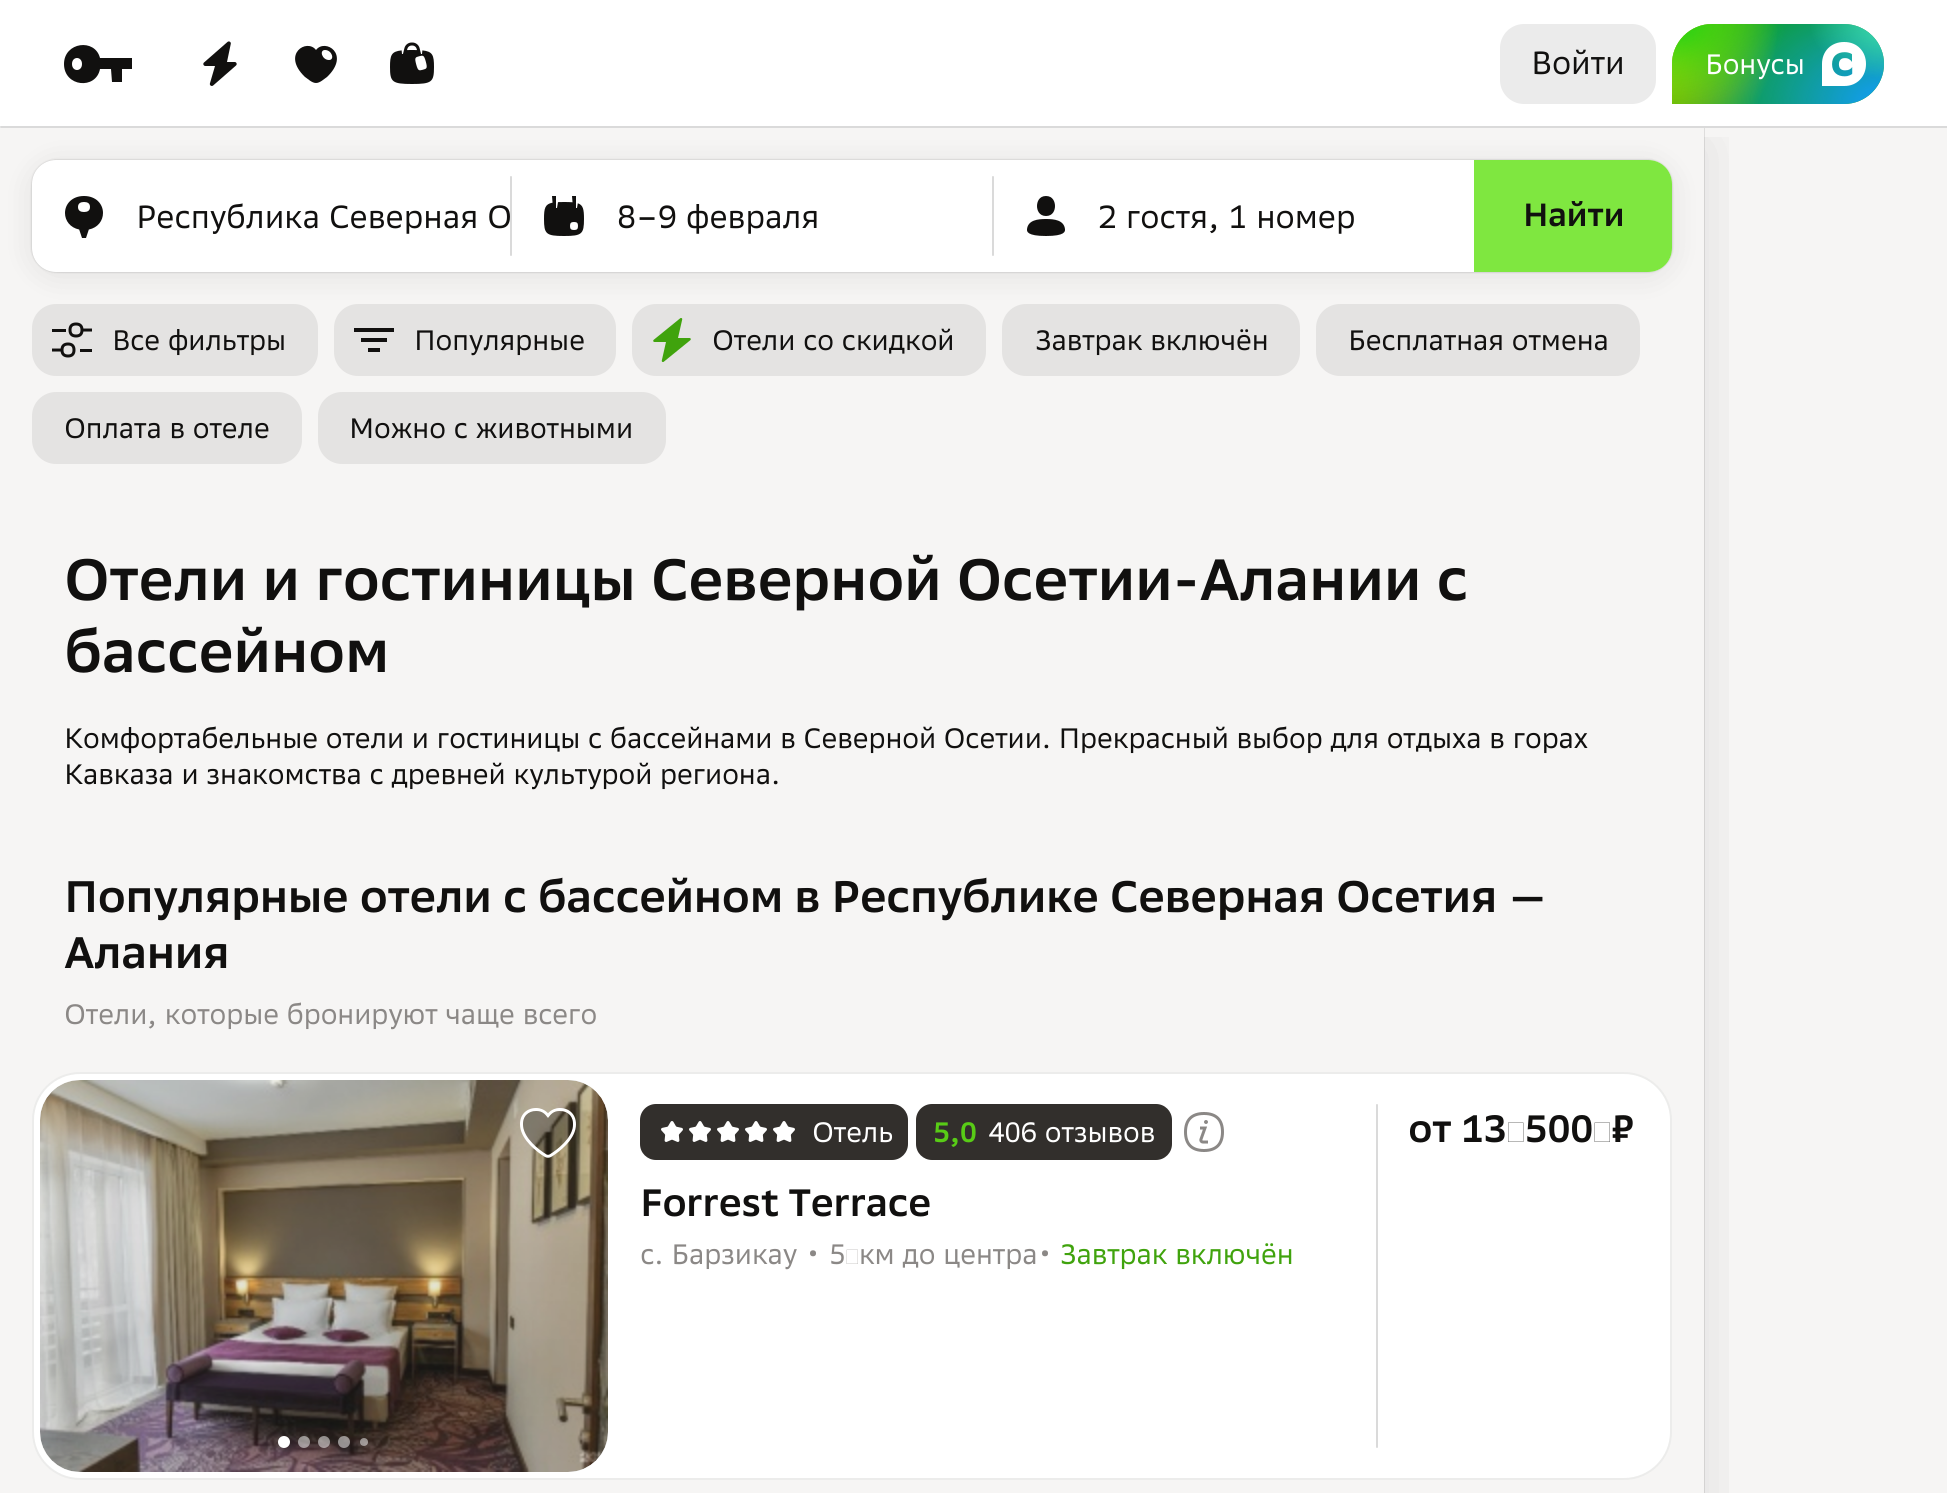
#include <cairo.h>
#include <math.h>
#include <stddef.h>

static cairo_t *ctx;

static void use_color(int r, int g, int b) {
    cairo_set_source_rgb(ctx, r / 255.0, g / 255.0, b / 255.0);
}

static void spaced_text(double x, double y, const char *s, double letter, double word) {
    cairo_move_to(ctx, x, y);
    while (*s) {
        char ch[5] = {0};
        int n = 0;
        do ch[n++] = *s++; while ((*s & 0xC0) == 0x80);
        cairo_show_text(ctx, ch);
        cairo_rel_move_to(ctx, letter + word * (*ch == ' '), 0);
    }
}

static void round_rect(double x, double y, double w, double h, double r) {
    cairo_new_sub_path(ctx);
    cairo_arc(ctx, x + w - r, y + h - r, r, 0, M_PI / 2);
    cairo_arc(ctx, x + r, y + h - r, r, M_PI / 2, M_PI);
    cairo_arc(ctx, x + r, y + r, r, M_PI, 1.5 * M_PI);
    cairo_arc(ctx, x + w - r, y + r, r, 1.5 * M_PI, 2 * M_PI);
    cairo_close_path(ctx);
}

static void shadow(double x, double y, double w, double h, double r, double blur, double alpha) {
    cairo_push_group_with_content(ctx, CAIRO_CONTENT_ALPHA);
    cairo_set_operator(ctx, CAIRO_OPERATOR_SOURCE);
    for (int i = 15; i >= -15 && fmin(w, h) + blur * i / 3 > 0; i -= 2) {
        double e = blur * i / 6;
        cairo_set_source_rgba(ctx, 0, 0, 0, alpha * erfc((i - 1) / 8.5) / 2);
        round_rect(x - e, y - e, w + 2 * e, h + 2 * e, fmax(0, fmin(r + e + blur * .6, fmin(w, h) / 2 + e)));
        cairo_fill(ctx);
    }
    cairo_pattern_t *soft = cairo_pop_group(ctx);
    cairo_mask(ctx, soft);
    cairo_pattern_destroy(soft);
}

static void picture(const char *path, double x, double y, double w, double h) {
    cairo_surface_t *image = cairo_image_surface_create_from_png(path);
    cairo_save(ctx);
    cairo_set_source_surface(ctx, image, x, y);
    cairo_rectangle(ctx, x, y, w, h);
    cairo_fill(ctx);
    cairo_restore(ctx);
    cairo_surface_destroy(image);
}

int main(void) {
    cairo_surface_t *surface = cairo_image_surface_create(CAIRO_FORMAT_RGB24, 1947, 1493);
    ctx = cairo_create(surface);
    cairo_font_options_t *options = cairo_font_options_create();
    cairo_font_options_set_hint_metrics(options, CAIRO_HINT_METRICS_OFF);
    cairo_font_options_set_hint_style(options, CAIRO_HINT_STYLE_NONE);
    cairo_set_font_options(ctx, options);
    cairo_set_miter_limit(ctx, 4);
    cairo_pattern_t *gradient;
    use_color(246, 245, 244);
    cairo_paint(ctx);
    cairo_save(ctx);
    cairo_rectangle(ctx, 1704, 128, 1, 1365);
    cairo_clip(ctx);
    use_color(0, 0, 0);
    shadow(0, 128, 1704, 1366, 0, 1, 0.3);
    cairo_restore(ctx);
    cairo_save(ctx);
    cairo_rectangle(ctx, 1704, 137, 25, 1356);
    cairo_clip(ctx);
    use_color(0, 0, 0);
    shadow(0, 144, 1704, 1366, 0, 30, 0.1);
    cairo_restore(ctx);
    use_color(228, 227, 226);
    round_rect(334, 304, 282, 72, 24);
    cairo_fill(ctx);
    round_rect(632, 304, 354, 72, 24);
    cairo_fill(ctx);
    round_rect(1002, 304, 298, 72, 24);
    cairo_fill(ctx);
    round_rect(1316, 304, 324, 72, 24);
    cairo_fill(ctx);
    use_color(0, 0, 0);
    shadow(32, 164, 1640, 112, 24, 16, 0.08);
    use_color(255, 255, 255);
    cairo_rectangle(ctx, 0, 0, 1947, 128);
    cairo_fill(ctx);
    use_color(218, 218, 218);
    round_rect(0, 126, 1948, 2, 1);
    cairo_fill(ctx);
    use_color(17, 16, 15);
    cairo_set_fill_rule(ctx, CAIRO_FILL_RULE_EVEN_ODD);
    cairo_new_path(ctx);
    cairo_move_to(ctx, 64, 64);
    cairo_curve_to(ctx, 64, 42, 95, 38, 100, 58);
    cairo_line_to(ctx, 132, 58);
    cairo_line_to(ctx, 132, 69);
    cairo_line_to(ctx, 122, 69);
    cairo_line_to(ctx, 122, 82);
    cairo_line_to(ctx, 112, 82);
    cairo_line_to(ctx, 111, 69);
    cairo_line_to(ctx, 100, 69);
    cairo_curve_to(ctx, 96, 90, 64, 87, 64, 64);
    cairo_close_path(ctx);
    cairo_move_to(ctx, 72, 64);
    cairo_curve_to(ctx, 72, 72, 82, 72, 82, 64);
    cairo_curve_to(ctx, 82, 56, 72, 56, 72, 64);
    cairo_close_path(ctx);
    cairo_fill(ctx);
    picture("img1.png", 203, 41, 34, 45);
    cairo_new_path(ctx);
    cairo_move_to(ctx, 316, 50);
    cairo_curve_to(ctx, 325, 38, 351, 54, 327, 77);
    cairo_curve_to(ctx, 324, 79, 320, 83, 316, 83);
    cairo_curve_to(ctx, 312, 83, 308, 79, 305, 77);
    cairo_curve_to(ctx, 281, 54, 307, 38, 316, 50);
    cairo_close_path(ctx);
    cairo_move_to(ctx, 325, 50);
    cairo_curve_to(ctx, 319, 50, 322, 60, 329, 60);
    cairo_curve_to(ctx, 335, 60, 332, 50, 325, 50);
    cairo_close_path(ctx);
    cairo_fill(ctx);
    picture("img2.png", 390, 42, 44, 42);
    use_color(235, 235, 235);
    round_rect(1500, 24, 156, 80, 24);
    cairo_fill(ctx);
    cairo_select_font_face(ctx, "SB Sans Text", CAIRO_FONT_SLANT_NORMAL, CAIRO_FONT_WEIGHT_NORMAL);
    cairo_set_font_size(ctx, 32);
    use_color(17, 16, 15);
    spaced_text(1531, 74, "Войти", -0.5, 0);
    use_color(12, 156, 12);
    cairo_new_path(ctx);
    cairo_move_to(ctx, 1712, 24);
    cairo_line_to(ctx, 1844, 24);
    cairo_curve_to(ctx, 1866, 24, 1884, 42, 1884, 64);
    cairo_curve_to(ctx, 1884, 86, 1866, 104, 1844, 104);
    cairo_line_to(ctx, 1672, 104);
    cairo_line_to(ctx, 1672, 64);
    cairo_curve_to(ctx, 1672, 42, 1690, 24, 1712, 24);
    cairo_close_path(ctx);
    cairo_fill(ctx);
    gradient = cairo_pattern_create_radial(0, 0, 0, 0, 0, 1);
    cairo_pattern_set_matrix(gradient, &(cairo_matrix_t){1.0 / 208, 0, 0, 1.0 / 147, -1.0 * 1884 / 208, -1.0 * 104 / 147});
    cairo_pattern_add_color_stop_rgba(gradient, 0, 0.071, 0.616, 0.98, 1);
    cairo_pattern_add_color_stop_rgba(gradient, 1, 0.071, 0.616, 0.98, 0);
    cairo_set_source(ctx, gradient);
    cairo_pattern_destroy(gradient);
    cairo_new_path(ctx);
    cairo_move_to(ctx, 1712, 24);
    cairo_line_to(ctx, 1844, 24);
    cairo_curve_to(ctx, 1866, 24, 1884, 42, 1884, 64);
    cairo_curve_to(ctx, 1884, 86, 1866, 104, 1844, 104);
    cairo_line_to(ctx, 1672, 104);
    cairo_line_to(ctx, 1672, 64);
    cairo_curve_to(ctx, 1672, 42, 1690, 24, 1712, 24);
    cairo_close_path(ctx);
    cairo_fill(ctx);
    gradient = cairo_pattern_create_radial(0, 0, 0, 0, 0, 1);
    cairo_pattern_set_matrix(gradient, &(cairo_matrix_t){1.0 / 82, 0, 0, 1.0 / 55, -1.0 * 1892 / 82, -1.0 * 24 / 55});
    cairo_pattern_add_color_stop_rgba(gradient, 0, 0.259, 0.89, 0.706, 1);
    cairo_pattern_add_color_stop_rgba(gradient, 1, 0.259, 0.89, 0.706, 0);
    cairo_set_source(ctx, gradient);
    cairo_pattern_destroy(gradient);
    cairo_new_path(ctx);
    cairo_move_to(ctx, 1712, 24);
    cairo_line_to(ctx, 1844, 24);
    cairo_curve_to(ctx, 1866, 24, 1884, 42, 1884, 64);
    cairo_curve_to(ctx, 1884, 86, 1866, 104, 1844, 104);
    cairo_line_to(ctx, 1672, 104);
    cairo_line_to(ctx, 1672, 64);
    cairo_curve_to(ctx, 1672, 42, 1690, 24, 1712, 24);
    cairo_close_path(ctx);
    cairo_fill(ctx);
    gradient = cairo_pattern_create_radial(0, 0, 0, 0, 0, 1);
    cairo_pattern_set_matrix(gradient, &(cairo_matrix_t){1.0 / 115, 0, 0, 1.0 / 141, -1.0 * 1663 / 115, -1.0 * 24 / 141});
    cairo_pattern_add_color_stop_rgba(gradient, 0, 0.98, 0.929, 0.02, 1);
    cairo_pattern_add_color_stop_rgba(gradient, 1, 0.98, 0.929, 0.02, 0);
    cairo_set_source(ctx, gradient);
    cairo_pattern_destroy(gradient);
    cairo_new_path(ctx);
    cairo_move_to(ctx, 1712, 24);
    cairo_line_to(ctx, 1844, 24);
    cairo_curve_to(ctx, 1866, 24, 1884, 42, 1884, 64);
    cairo_curve_to(ctx, 1884, 86, 1866, 104, 1844, 104);
    cairo_line_to(ctx, 1672, 104);
    cairo_line_to(ctx, 1672, 64);
    cairo_curve_to(ctx, 1672, 42, 1690, 24, 1712, 24);
    cairo_close_path(ctx);
    cairo_fill(ctx);
    gradient = cairo_pattern_create_radial(0, 0, 0, 0, 0, 1);
    cairo_pattern_set_matrix(gradient, &(cairo_matrix_t){1.0 / 114, 0, 0, 1.0 / 81, -1.0 * 1672 / 114, -1.0 * 24 / 81});
    cairo_pattern_add_color_stop_rgba(gradient, 0, 0.082, 0.816, 0.082, 1);
    cairo_pattern_add_color_stop_rgba(gradient, 1, 0.082, 0.816, 0.082, 0);
    cairo_set_source(ctx, gradient);
    cairo_pattern_destroy(gradient);
    cairo_new_path(ctx);
    cairo_move_to(ctx, 1712, 24);
    cairo_line_to(ctx, 1844, 24);
    cairo_curve_to(ctx, 1866, 24, 1884, 42, 1884, 64);
    cairo_curve_to(ctx, 1884, 86, 1866, 104, 1844, 104);
    cairo_line_to(ctx, 1672, 104);
    cairo_line_to(ctx, 1672, 64);
    cairo_curve_to(ctx, 1672, 42, 1690, 24, 1712, 24);
    cairo_close_path(ctx);
    cairo_fill(ctx);
    cairo_set_font_size(ctx, 28);
    use_color(255, 255, 255);
    spaced_text(1705, 74, "Бонусы", -0.56, 0);
    picture("img3.png", 1822, 42, 44, 44);
    use_color(0, 0, 0);
    shadow(32, 160, 1640, 112, 24, 1, 0.24);
    use_color(255, 255, 255);
    round_rect(32, 160, 1640, 112, 24);
    cairo_fill(ctx);
    picture("img4.png", 65, 196, 38, 42);
    cairo_set_font_size(ctx, 32);
    use_color(17, 16, 15);
    spaced_text(136, 228, "Республика Северная О", -0.5, 0);
    cairo_set_source_rgba(ctx, 0.518, 0.514, 0.51, 0.3);
    round_rect(510, 176, 2, 80, 1);
    cairo_fill(ctx);
    picture("img5.png", 544, 196, 40, 40);
    use_color(17, 16, 15);
    spaced_text(617, 228, "8–9 февраля", -0.5, 0);
    use_color(218, 218, 218);
    round_rect(992, 176, 2, 80, 1);
    cairo_fill(ctx);
    picture("img6.png", 1027, 196, 38, 40);
    use_color(17, 16, 15);
    spaced_text(1098, 228, "2 гостя, 1 номер", -0.5, 0);
    use_color(127, 231, 64);
    cairo_new_path(ctx);
    cairo_move_to(ctx, 1474, 160);
    cairo_line_to(ctx, 1648, 160);
    cairo_curve_to(ctx, 1661.5, 160, 1672, 170.5, 1672, 184);
    cairo_line_to(ctx, 1672, 248);
    cairo_curve_to(ctx, 1672, 261.5, 1661.5, 272, 1648, 272);
    cairo_line_to(ctx, 1474, 272);
    cairo_close_path(ctx);
    cairo_fill(ctx);
    cairo_select_font_face(ctx, "SB Sans Text SemiBold", CAIRO_FONT_SLANT_NORMAL, CAIRO_FONT_WEIGHT_NORMAL);
    use_color(17, 16, 15);
    spaced_text(1523, 226, "Найти", -0.5, 0);
    use_color(228, 227, 226);
    round_rect(32, 304, 286, 72, 24);
    cairo_fill(ctx);
    picture("img7.png", 52, 322, 40, 36);
    cairo_select_font_face(ctx, "SB Sans Text", CAIRO_FONT_SLANT_NORMAL, CAIRO_FONT_WEIGHT_NORMAL);
    cairo_set_font_size(ctx, 28);
    use_color(17, 16, 15);
    spaced_text(112, 350, "Все фильтры", -0.56, 0);
    cairo_set_fill_rule(ctx, CAIRO_FILL_RULE_WINDING);
    cairo_new_path(ctx);
    cairo_move_to(ctx, 394, 332);
    cairo_line_to(ctx, 354, 332);
    cairo_line_to(ctx, 354, 328);
    cairo_line_to(ctx, 394, 328);
    cairo_close_path(ctx);
    cairo_move_to(ctx, 387, 342);
    cairo_line_to(ctx, 361, 342);
    cairo_line_to(ctx, 361, 338);
    cairo_line_to(ctx, 387, 338);
    cairo_close_path(ctx);
    cairo_move_to(ctx, 368, 352);
    cairo_line_to(ctx, 380, 352);
    cairo_line_to(ctx, 380, 348);
    cairo_line_to(ctx, 368, 348);
    cairo_close_path(ctx);
    cairo_fill(ctx);
    spaced_text(414, 350, "Популярные", -0.56, 0);
    picture("img8.png", 653, 318, 38, 44);
    spaced_text(712, 350, "Отели со скидкой", -0.56, 0);
    spaced_text(1035, 350, "Завтрак включён", -0.56, 0);
    spaced_text(1348, 350, "Бесплатная отмена", -0.56, 0);
    use_color(228, 227, 226);
    round_rect(32, 392, 270, 72, 24);
    cairo_fill(ctx);
    use_color(17, 16, 15);
    spaced_text(64, 438, "Оплата в отеле", -0.56, 0);
    use_color(228, 227, 226);
    round_rect(318, 392, 348, 72, 24);
    cairo_fill(ctx);
    use_color(17, 16, 15);
    spaced_text(349, 438, "Можно с животными", -0.56, 0);
    cairo_select_font_face(ctx, "SB Sans Text SemiBold", CAIRO_FONT_SLANT_NORMAL, CAIRO_FONT_WEIGHT_NORMAL);
    cairo_set_font_size(ctx, 58);
    spaced_text(64, 600, "Отели и гостиницы Северной Осетии-Алании с", -0.85, 0);
    spaced_text(64, 672, "бассейном", -0.85, 0);
    cairo_select_font_face(ctx, "SB Sans Text", CAIRO_FONT_SLANT_NORMAL, CAIRO_FONT_WEIGHT_NORMAL);
    cairo_set_font_size(ctx, 28);
    spaced_text(64, 748, "Комфортабельные отели и гостиницы с бассейнами в Северной Осетии. Прекрасный выбор для отдыха в горах", -0.56, 0);
    spaced_text(64, 784, "Кавказа и знакомства с древней культурой региона.", -0.56, 0);
    cairo_select_font_face(ctx, "SB Sans Text SemiBold", CAIRO_FONT_SLANT_NORMAL, CAIRO_FONT_WEIGHT_NORMAL);
    cairo_set_font_size(ctx, 44);
    spaced_text(64, 912, "Популярные отели с бассейном в Республике Северная Осетия —", -0.8, 0);
    spaced_text(64, 968, "Алания", -0.8, 0);
    cairo_select_font_face(ctx, "SB Sans Text", CAIRO_FONT_SLANT_NORMAL, CAIRO_FONT_WEIGHT_NORMAL);
    cairo_set_font_size(ctx, 28);
    use_color(139, 136, 134);
    spaced_text(64, 1024, "Отели, которые бронируют чаще всего", -0.56, 0);
    use_color(255, 255, 255);
    round_rect(32, 1072, 1640, 408, 48);
    cairo_fill(ctx);
    use_color(237, 235, 234);
    round_rect(40, 1080, 568, 392, 40);
    cairo_fill(ctx);
    picture("img9.png", 40, 1080, 568, 392);
    gradient = cairo_pattern_create_linear(324, 1080, 324, 1472);
    cairo_pattern_add_color_stop_rgba(gradient, 0, 0, 0, 0, 0);
    cairo_pattern_add_color_stop_rgba(gradient, 1, 0, 0, 0, 0.08);
    cairo_set_source(ctx, gradient);
    cairo_pattern_destroy(gradient);
    round_rect(40, 1080, 568, 392, 40);
    cairo_fill(ctx);
    cairo_set_source_rgba(ctx, 0.518, 0.514, 0.51, 0.16);
    cairo_new_path(ctx);
    cairo_move_to(ctx, 80, 1080);
    cairo_line_to(ctx, 568, 1080);
    cairo_curve_to(ctx, 590, 1080, 608, 1098, 608, 1120);
    cairo_line_to(ctx, 608, 1432);
    cairo_curve_to(ctx, 608, 1454, 590, 1472, 568, 1472);
    cairo_line_to(ctx, 80, 1472);
    cairo_curve_to(ctx, 58, 1472, 40, 1454, 40, 1432);
    cairo_line_to(ctx, 40, 1120);
    cairo_curve_to(ctx, 40, 1098, 58, 1080, 80, 1080);
    cairo_close_path(ctx);
    cairo_fill(ctx);
    use_color(255, 255, 255);
    cairo_arc(ctx, 284, 1442, 6, 0, 2 * M_PI);
    cairo_fill(ctx);
    cairo_set_source_rgba(ctx, 1, 1, 1, 0.5);
    cairo_arc(ctx, 304, 1442, 6, 0, 2 * M_PI);
    cairo_fill(ctx);
    cairo_arc(ctx, 324, 1442, 6, 0, 2 * M_PI);
    cairo_fill(ctx);
    cairo_arc(ctx, 344, 1442, 6, 0, 2 * M_PI);
    cairo_fill(ctx);
    cairo_arc(ctx, 364, 1442, 4, 0, 2 * M_PI);
    cairo_fill(ctx);
    picture("img10.png", 520, 1108, 56, 50);
    use_color(50, 47, 44);
    round_rect(640, 1104, 268, 56, 16);
    cairo_fill(ctx);
    picture("img11.png", 661, 1121, 22, 21);
    picture("img11.png", 689, 1121, 22, 21);
    picture("img11.png", 717, 1121, 22, 21);
    picture("img11.png", 745, 1121, 22, 21);
    picture("img11.png", 773, 1121, 22, 21);
    round_rect(916, 1104, 256, 56, 16);
    cairo_fill(ctx);
    picture("img12.png", 1184, 1112, 40, 40);
    use_color(218, 218, 218);
    round_rect(1376, 1104, 2, 344, 1);
    cairo_fill(ctx);
    round_rect(33, 1073, 1638, 406, 47);
    cairo_set_source_rgba(ctx, 0.518, 0.514, 0.51, 0.16);
    cairo_stroke(ctx);
    use_color(255, 255, 255);
    spaced_text(812, 1142, "Отель", -0.56, 0);
    cairo_select_font_face(ctx, "SB Sans Text SemiBold", CAIRO_FONT_SLANT_NORMAL, CAIRO_FONT_WEIGHT_NORMAL);
    use_color(88, 204, 22);
    spaced_text(933, 1142, "5,0", -0.56, 0);
    cairo_select_font_face(ctx, "SB Sans Text", CAIRO_FONT_SLANT_NORMAL, CAIRO_FONT_WEIGHT_NORMAL);
    use_color(255, 255, 255);
    spaced_text(988, 1142, "406 отзывов", -0.56, 0);
    cairo_select_font_face(ctx, "SB Sans Text SemiBold", CAIRO_FONT_SLANT_NORMAL, CAIRO_FONT_WEIGHT_NORMAL);
    cairo_set_font_size(ctx, 38);
    use_color(17, 16, 15);
    spaced_text(640, 1216, "Forrest Terrace", -0.75, 0);
    cairo_select_font_face(ctx, "SB Sans Text", CAIRO_FONT_SLANT_NORMAL, CAIRO_FONT_WEIGHT_NORMAL);
    cairo_set_font_size(ctx, 28);
    use_color(139, 136, 134);
    spaced_text(640, 1264, "с. Барзикау", -0.56, 0);
    cairo_set_font_size(ctx, 30);
    spaced_text(807, 1264, "•", -0.56, 0);
    cairo_set_font_size(ctx, 28);
    spaced_text(829, 1264, "5 км до центра", -0.56, 0);
    cairo_set_font_size(ctx, 30);
    spaced_text(1039, 1264, "•", -0.56, 0);
    cairo_set_font_size(ctx, 28);
    use_color(64, 163, 13);
    spaced_text(1060, 1264, "Завтрак включён", -0.56, 0);
    cairo_select_font_face(ctx, "SB Sans Text SemiBold", CAIRO_FONT_SLANT_NORMAL, CAIRO_FONT_WEIGHT_NORMAL);
    cairo_set_font_size(ctx, 38);
    use_color(17, 16, 15);
    spaced_text(1408, 1142, "от 13 500 ₽", -0.75, 0);
    cairo_surface_write_to_png(surface, "result.png");
    cairo_font_options_destroy(options);
    cairo_destroy(ctx);
    cairo_surface_destroy(surface);
    return 0;
}
